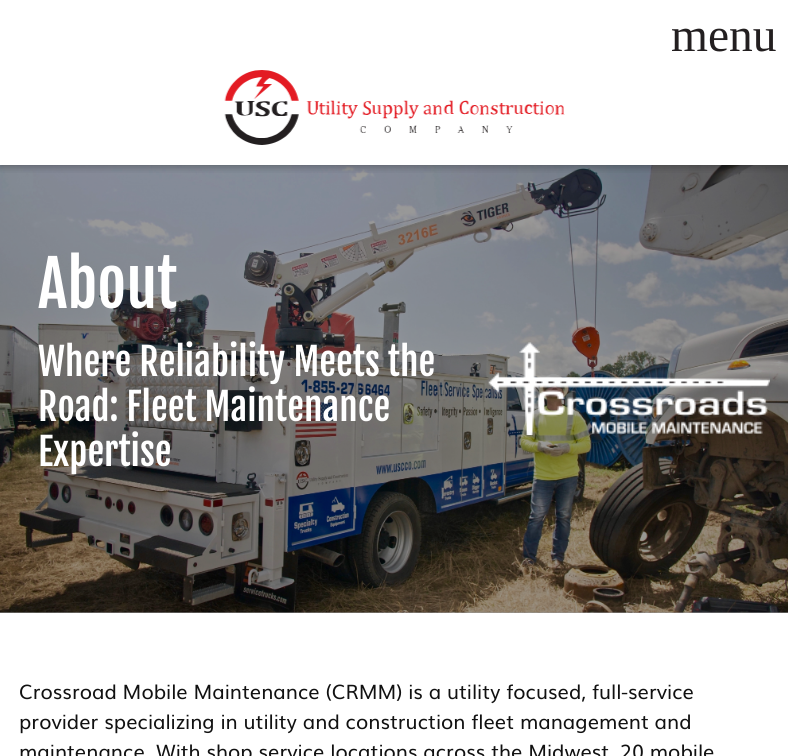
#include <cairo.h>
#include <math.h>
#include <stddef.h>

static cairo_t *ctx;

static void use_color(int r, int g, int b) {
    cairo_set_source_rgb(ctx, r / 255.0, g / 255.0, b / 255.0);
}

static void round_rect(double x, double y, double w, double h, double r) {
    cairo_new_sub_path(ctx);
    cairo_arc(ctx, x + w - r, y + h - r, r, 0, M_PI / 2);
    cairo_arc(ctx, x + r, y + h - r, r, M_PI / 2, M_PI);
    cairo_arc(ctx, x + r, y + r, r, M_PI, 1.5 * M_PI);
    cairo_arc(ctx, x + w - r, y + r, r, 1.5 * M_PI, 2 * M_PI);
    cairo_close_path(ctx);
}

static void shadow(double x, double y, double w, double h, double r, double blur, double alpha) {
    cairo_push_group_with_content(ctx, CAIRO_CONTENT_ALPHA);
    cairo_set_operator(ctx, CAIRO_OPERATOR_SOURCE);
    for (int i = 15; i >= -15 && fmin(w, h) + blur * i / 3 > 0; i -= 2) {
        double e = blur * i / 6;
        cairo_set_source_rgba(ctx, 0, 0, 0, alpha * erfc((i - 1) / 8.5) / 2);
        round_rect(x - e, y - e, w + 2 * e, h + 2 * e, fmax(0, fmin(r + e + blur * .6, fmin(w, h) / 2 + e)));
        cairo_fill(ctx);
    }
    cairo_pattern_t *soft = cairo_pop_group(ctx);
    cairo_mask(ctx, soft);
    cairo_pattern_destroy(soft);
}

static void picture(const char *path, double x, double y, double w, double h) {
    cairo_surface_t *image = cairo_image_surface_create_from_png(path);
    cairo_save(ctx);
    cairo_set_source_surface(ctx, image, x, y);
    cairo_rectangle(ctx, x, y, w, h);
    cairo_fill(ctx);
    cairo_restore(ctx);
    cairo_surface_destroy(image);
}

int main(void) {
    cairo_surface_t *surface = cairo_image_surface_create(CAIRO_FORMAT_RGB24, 788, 756);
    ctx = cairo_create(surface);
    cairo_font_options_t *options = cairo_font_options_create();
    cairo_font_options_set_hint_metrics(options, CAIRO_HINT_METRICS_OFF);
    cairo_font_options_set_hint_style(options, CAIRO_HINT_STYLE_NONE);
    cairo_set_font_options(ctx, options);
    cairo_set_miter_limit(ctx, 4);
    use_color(255, 255, 255);
    cairo_paint(ctx);
    use_color(153, 153, 153);
    cairo_rectangle(ctx, 0, 612, 788, 1);
    cairo_fill(ctx);
    picture("img2.png", 0, 165, 788, 448);
    cairo_save(ctx);
    cairo_rectangle(ctx, 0, 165, 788, 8);
    cairo_clip(ctx);
    use_color(0, 0, 0);
    shadow(0, 0, 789, 165, 0, 5, 0.4);
    cairo_restore(ctx);
    cairo_select_font_face(ctx, "Liberation Serif", CAIRO_FONT_SLANT_NORMAL, CAIRO_FONT_WEIGHT_NORMAL);
    cairo_set_font_size(ctx, 47.5);
    use_color(35, 31, 32);
    cairo_move_to(ctx, 671, 51);
    cairo_show_text(ctx, "menu");
    picture("img1.png", 224, 70, 341, 75);
    cairo_select_font_face(ctx, "Fjalla One", CAIRO_FONT_SLANT_NORMAL, CAIRO_FONT_WEIGHT_NORMAL);
    cairo_set_font_size(ctx, 62.5);
    use_color(255, 255, 255);
    cairo_move_to(ctx, 38, 308);
    cairo_show_text(ctx, "About");
    cairo_set_font_size(ctx, 37.5);
    cairo_move_to(ctx, 38, 376);
    cairo_show_text(ctx, "Where Reliability Meets the");
    cairo_move_to(ctx, 38, 421);
    cairo_show_text(ctx, "Road: Fleet Maintenance");
    cairo_move_to(ctx, 38, 466);
    cairo_show_text(ctx, "Expertise");
    picture("img3.png", 488, 342, 282, 93);
    cairo_select_font_face(ctx, "Muli", CAIRO_FONT_SLANT_NORMAL, CAIRO_FONT_WEIGHT_NORMAL);
    cairo_set_font_size(ctx, 20);
    use_color(17, 17, 17);
    cairo_move_to(ctx, 19, 699);
    cairo_show_text(ctx, "Crossroad Mobile Maintenance (CRMM) is a utility focused, full-service");
    cairo_move_to(ctx, 19, 729);
    cairo_show_text(ctx, "provider specializing in utility and construction fleet management and");
    cairo_move_to(ctx, 19, 759);
    cairo_show_text(ctx, "maintenance. With shop service locations across the Midwest, 20 mobile");
    cairo_surface_write_to_png(surface, "result.png");
    cairo_font_options_destroy(options);
    cairo_destroy(ctx);
    cairo_surface_destroy(surface);
    return 0;
}
